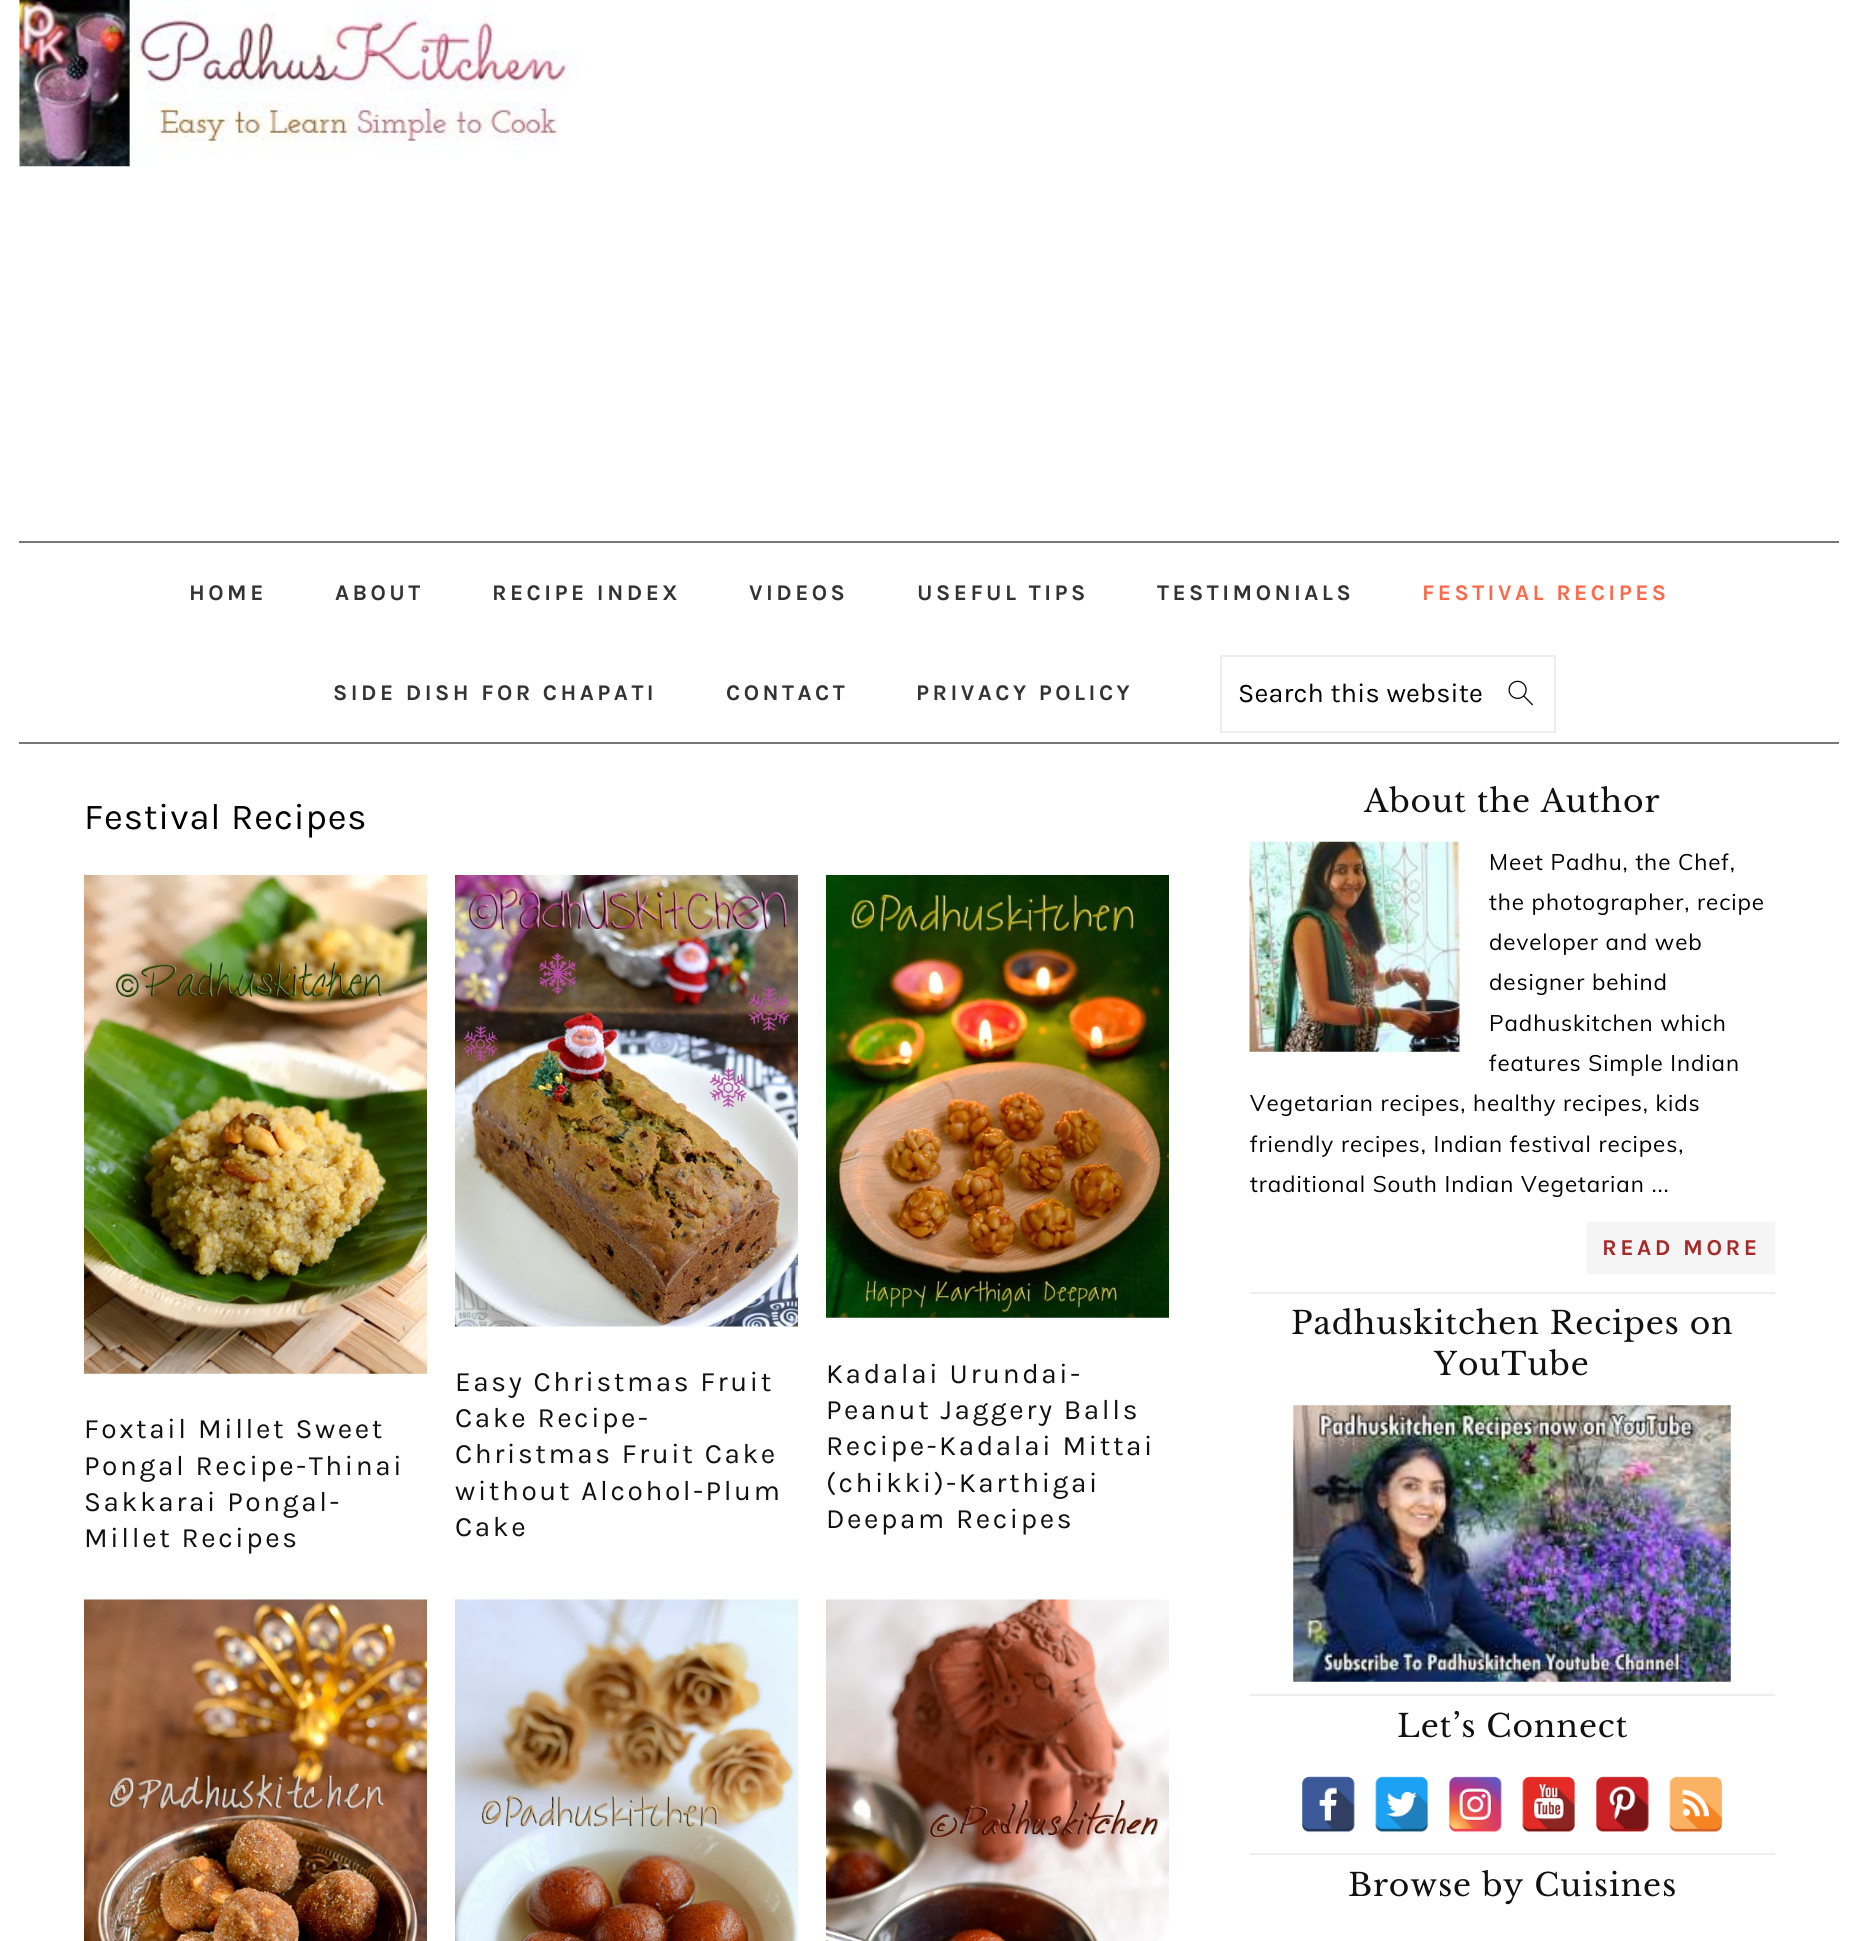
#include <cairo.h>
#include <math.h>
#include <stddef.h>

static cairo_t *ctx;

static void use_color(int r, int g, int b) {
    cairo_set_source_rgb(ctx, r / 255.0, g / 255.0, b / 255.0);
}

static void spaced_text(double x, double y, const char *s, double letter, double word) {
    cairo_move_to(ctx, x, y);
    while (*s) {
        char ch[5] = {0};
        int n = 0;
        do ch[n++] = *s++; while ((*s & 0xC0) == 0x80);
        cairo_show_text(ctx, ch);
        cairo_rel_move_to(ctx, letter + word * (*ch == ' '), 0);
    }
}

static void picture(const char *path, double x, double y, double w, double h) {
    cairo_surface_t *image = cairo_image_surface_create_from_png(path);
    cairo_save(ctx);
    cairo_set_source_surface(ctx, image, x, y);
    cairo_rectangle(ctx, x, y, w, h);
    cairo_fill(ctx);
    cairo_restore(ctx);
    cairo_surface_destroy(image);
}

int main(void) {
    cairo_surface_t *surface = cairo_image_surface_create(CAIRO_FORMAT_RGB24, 1857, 1941);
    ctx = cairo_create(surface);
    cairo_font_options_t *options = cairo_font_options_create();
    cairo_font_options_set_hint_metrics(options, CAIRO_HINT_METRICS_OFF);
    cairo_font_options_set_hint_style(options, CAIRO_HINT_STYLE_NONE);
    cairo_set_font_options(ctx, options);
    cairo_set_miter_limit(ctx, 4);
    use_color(255, 255, 255);
    cairo_paint(ctx);
    picture("img1.png", 19, 0, 560, 167);
    use_color(119, 119, 119);
    cairo_rectangle(ctx, 19, 541, 1820, 2);
    cairo_fill(ctx);
    cairo_rectangle(ctx, 19, 742, 1820, 2);
    cairo_fill(ctx);
    cairo_select_font_face(ctx, "Karla", CAIRO_FONT_SLANT_NORMAL, CAIRO_FONT_WEIGHT_BOLD);
    cairo_set_font_size(ctx, 22.4);
    use_color(51, 51, 51);
    spaced_text(189, 600, "HOME", 3.5, 0);
    spaced_text(335, 600, "ABOUT", 3.5, 0);
    spaced_text(492, 600, "RECIPE INDEX", 3.5, 0);
    spaced_text(749, 600, "VIDEOS", 3.5, 0);
    spaced_text(917, 600, "USEFUL TIPS", 3.5, 0);
    spaced_text(1157, 600, "TESTIMONIALS", 3.5, 0);
    use_color(251, 106, 74);
    spaced_text(1422, 600, "FESTIVAL RECIPES", 3.5, 0);
    use_color(51, 51, 51);
    spaced_text(333, 700, "SIDE DISH FOR CHAPATI", 3.5, 0);
    spaced_text(726, 700, "CONTACT", 3.5, 0);
    spaced_text(916, 700, "PRIVACY POLICY", 3.5, 0);
    cairo_rectangle(ctx, 1221, 656, 334, 76);
    use_color(238, 238, 238);
    cairo_stroke(ctx);
    picture("img2.png", 1508, 680, 25, 26);
    cairo_select_font_face(ctx, "Karla", CAIRO_FONT_SLANT_NORMAL, CAIRO_FONT_WEIGHT_NORMAL);
    cairo_set_font_size(ctx, 26.9);
    use_color(0, 0, 0);
    spaced_text(1238, 702, "Search this website", 0.2, 0);
    cairo_set_font_size(ctx, 36.5);
    spaced_text(84, 829, "Festival Recipes", 0.9, 0);
    picture("img3.png", 84, 875, 343, 499);
    cairo_set_font_size(ctx, 28);
    use_color(17, 17, 17);
    spaced_text(84, 1438, "Foxtail Millet Sweet", 2.6, 0);
    spaced_text(84, 1475, "Pongal Recipe-Thinai", 2.6, 0);
    spaced_text(84, 1511, "Sakkarai Pongal-", 2.6, 0);
    spaced_text(84, 1547, "Millet Recipes", 2.6, 0);
    picture("img4.png", 455, 875, 343, 452);
    spaced_text(455, 1391, "Easy Christmas Fruit", 2.6, 0);
    spaced_text(455, 1427, "Cake Recipe-", 2.6, 0);
    spaced_text(455, 1463, "Christmas Fruit Cake", 2.6, 0);
    spaced_text(455, 1500, "without Alcohol-Plum", 2.6, 0);
    spaced_text(455, 1536, "Cake", 2.6, 0);
    picture("img5.png", 826, 875, 343, 443);
    spaced_text(826, 1383, "Kadalai Urundai-", 2.6, 0);
    spaced_text(826, 1419, "Peanut Jaggery Balls", 2.6, 0);
    spaced_text(826, 1455, "Recipe-Kadalai Mittai", 2.6, 0);
    spaced_text(826, 1492, "(chikki)-Karthigai", 2.6, 0);
    spaced_text(826, 1528, "Deepam Recipes", 2.6, 0);
    picture("img6.png", 84, 1599, 343, 342);
    picture("img7.png", 455, 1599, 343, 342);
    picture("img8.png", 826, 1599, 343, 342);
    use_color(238, 238, 238);
    cairo_rectangle(ctx, 1250, 1292, 525, 2);
    cairo_fill(ctx);
    cairo_select_font_face(ctx, "Libre Baskerville", CAIRO_FONT_SLANT_NORMAL, CAIRO_FONT_WEIGHT_NORMAL);
    cairo_set_font_size(ctx, 31.4);
    use_color(17, 17, 17);
    spaced_text(1364, 812, "About the Author", 0.9, 0);
    picture("img9.png", 1249, 841, 211, 211);
    cairo_select_font_face(ctx, "Muli", CAIRO_FONT_SLANT_NORMAL, CAIRO_FONT_WEIGHT_NORMAL);
    cairo_set_font_size(ctx, 22.4);
    use_color(0, 0, 0);
    spaced_text(1489, 870, "Meet Padhu, the Chef,", 0.9, 0);
    spaced_text(1489, 910, "the photographer, recipe", 0.9, 0);
    spaced_text(1489, 950, "developer and web", 0.9, 0);
    spaced_text(1489, 990, "designer behind", 0.9, 0);
    spaced_text(1489, 1031, "Padhuskitchen which", 0.9, 0);
    spaced_text(1489, 1071, "features Simple Indian", 0.9, 0);
    spaced_text(1250, 1111, "Vegetarian recipes, healthy recipes, kids", 0.9, 0);
    spaced_text(1250, 1152, "friendly recipes, Indian festival recipes,", 0.9, 0);
    spaced_text(1250, 1192, "traditional South Indian Vegetarian ...", 0.9, 0);
    use_color(245, 245, 245);
    cairo_rectangle(ctx, 1587, 1222, 188, 52);
    cairo_fill(ctx);
    cairo_select_font_face(ctx, "Karla", CAIRO_FONT_SLANT_NORMAL, CAIRO_FONT_WEIGHT_BOLD);
    cairo_set_font_size(ctx, 22.75);
    use_color(165, 42, 42);
    spaced_text(1602, 1255, "READ MORE", 3.5, 0);
    use_color(238, 238, 238);
    cairo_rectangle(ctx, 1250, 1694, 525, 2);
    cairo_fill(ctx);
    cairo_select_font_face(ctx, "Libre Baskerville", CAIRO_FONT_SLANT_NORMAL, CAIRO_FONT_WEIGHT_NORMAL);
    cairo_set_font_size(ctx, 31.4);
    use_color(17, 17, 17);
    spaced_text(1291, 1334, "Padhuskitchen Recipes on", 0.9, 0);
    spaced_text(1434, 1375, "YouTube", 0.9, 0);
    picture("img10.png", 1293, 1405, 438, 277);
    use_color(238, 238, 238);
    cairo_rectangle(ctx, 1250, 1853, 525, 2);
    cairo_fill(ctx);
    use_color(17, 17, 17);
    spaced_text(1397, 1737, "Let’s Connect", 0.9, 0);
    picture("img11.png", 1302, 1776, 53, 57);
    picture("img12.png", 1375, 1776, 53, 57);
    picture("img13.png", 1449, 1776, 53, 57);
    picture("img14.png", 1522, 1776, 53, 57);
    picture("img15.png", 1596, 1776, 53, 56);
    picture("img16.png", 1669, 1776, 53, 57);
    spaced_text(1348, 1896, "Browse by Cuisines", 0.9, 0);
    cairo_surface_write_to_png(surface, "result.png");
    cairo_font_options_destroy(options);
    cairo_destroy(ctx);
    cairo_surface_destroy(surface);
    return 0;
}
